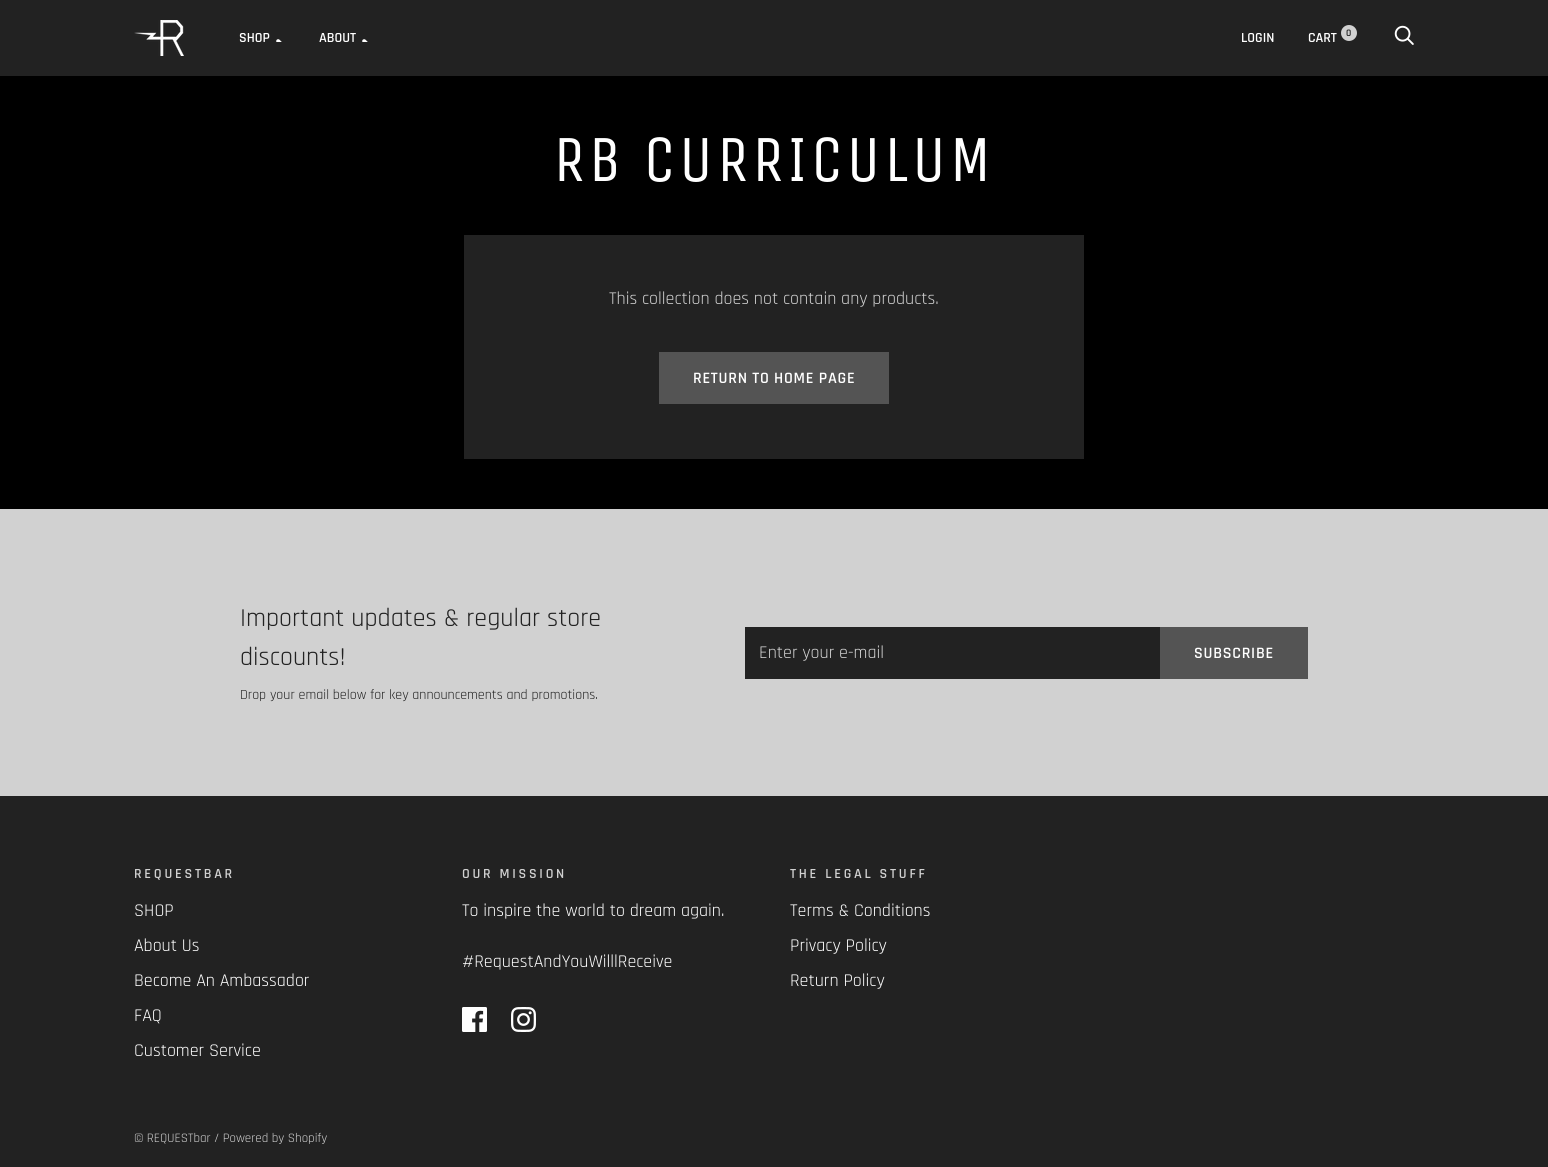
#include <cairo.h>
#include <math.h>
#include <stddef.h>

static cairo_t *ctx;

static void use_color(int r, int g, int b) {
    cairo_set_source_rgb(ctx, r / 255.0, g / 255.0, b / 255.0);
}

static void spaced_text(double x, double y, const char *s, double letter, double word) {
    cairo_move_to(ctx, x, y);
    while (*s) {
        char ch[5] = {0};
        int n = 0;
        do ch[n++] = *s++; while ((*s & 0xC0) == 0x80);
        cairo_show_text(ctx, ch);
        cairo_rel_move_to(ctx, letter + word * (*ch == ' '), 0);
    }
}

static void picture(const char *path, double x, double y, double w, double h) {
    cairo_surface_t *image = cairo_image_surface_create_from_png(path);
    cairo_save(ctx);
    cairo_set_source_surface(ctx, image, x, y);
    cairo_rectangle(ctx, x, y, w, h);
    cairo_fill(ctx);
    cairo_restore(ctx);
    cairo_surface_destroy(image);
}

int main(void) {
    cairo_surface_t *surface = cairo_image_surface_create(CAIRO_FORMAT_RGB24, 1548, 1167);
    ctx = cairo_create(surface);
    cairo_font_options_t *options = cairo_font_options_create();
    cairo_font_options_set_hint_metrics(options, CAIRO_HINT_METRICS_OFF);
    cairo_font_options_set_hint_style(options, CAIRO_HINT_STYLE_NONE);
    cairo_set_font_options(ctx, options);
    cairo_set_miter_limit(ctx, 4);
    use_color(34, 34, 34);
    cairo_paint(ctx);
    picture("img1.png", 134, 20, 50, 36);
    cairo_select_font_face(ctx, "Rajdhani SemiBold", CAIRO_FONT_SLANT_NORMAL, CAIRO_FONT_WEIGHT_NORMAL);
    cairo_set_font_size(ctx, 14);
    use_color(255, 255, 255);
    cairo_move_to(ctx, 239, 42);
    cairo_show_text(ctx, "SHOP");
    picture("img2.png", 276, 39, 6, 3);
    cairo_move_to(ctx, 319, 42);
    cairo_show_text(ctx, "ABOUT");
    picture("img2.png", 362, 39, 6, 3);
    cairo_move_to(ctx, 1241, 42);
    cairo_show_text(ctx, "LOGIN");
    cairo_move_to(ctx, 1308, 42);
    cairo_show_text(ctx, "CART");
    use_color(209, 209, 209);
    cairo_new_path(ctx);
    cairo_arc(ctx, 1349, 33, 8, 0, 2 * M_PI);
    cairo_fill(ctx);
    cairo_set_font_size(ctx, 10);
    use_color(34, 34, 34);
    cairo_move_to(ctx, 1346, 36);
    cairo_show_text(ctx, "0");
    picture("img3.png", 1394, 25, 20, 20);
    use_color(0, 0, 0);
    cairo_rectangle(ctx, 0, 76, 1548, 433);
    cairo_fill(ctx);
    cairo_select_font_face(ctx, "Unica One", CAIRO_FONT_SLANT_NORMAL, CAIRO_FONT_WEIGHT_NORMAL);
    cairo_set_font_size(ctx, 66);
    use_color(255, 255, 255);
    spaced_text(553, 181, "RB CURRICULUM", 3.25, 0);
    use_color(34, 34, 34);
    cairo_rectangle(ctx, 464, 235, 620, 224);
    cairo_fill(ctx);
    cairo_select_font_face(ctx, "Rajdhani", CAIRO_FONT_SLANT_NORMAL, CAIRO_FONT_WEIGHT_NORMAL);
    cairo_set_font_size(ctx, 18);
    use_color(209, 209, 209);
    cairo_move_to(ctx, 609, 304);
    cairo_show_text(ctx, "This collection does not contain any products.");
    use_color(84, 84, 84);
    cairo_rectangle(ctx, 659, 352, 230, 52);
    cairo_fill(ctx);
    cairo_select_font_face(ctx, "Rajdhani SemiBold", CAIRO_FONT_SLANT_NORMAL, CAIRO_FONT_WEIGHT_NORMAL);
    cairo_set_font_size(ctx, 16);
    use_color(255, 255, 255);
    spaced_text(693, 383, "RETURN TO HOME PAGE", 0.75, 0);
    use_color(209, 209, 209);
    cairo_rectangle(ctx, 0, 509, 1548, 287);
    cairo_fill(ctx);
    cairo_select_font_face(ctx, "Rajdhani", CAIRO_FONT_SLANT_NORMAL, CAIRO_FONT_WEIGHT_NORMAL);
    cairo_set_font_size(ctx, 26);
    use_color(34, 34, 34);
    cairo_move_to(ctx, 240, 626);
    cairo_show_text(ctx, "Important updates & regular store");
    cairo_move_to(ctx, 240, 665);
    cairo_show_text(ctx, "discounts!");
    cairo_set_font_size(ctx, 14);
    cairo_move_to(ctx, 240, 699);
    cairo_show_text(ctx, "Drop your email below for key announcements and promotions.");
    cairo_rectangle(ctx, 745, 627, 415, 52);
    cairo_fill(ctx);
    cairo_set_font_size(ctx, 18);
    use_color(209, 209, 209);
    cairo_move_to(ctx, 759, 658);
    cairo_show_text(ctx, "Enter your e-mail");
    use_color(84, 84, 84);
    cairo_rectangle(ctx, 1160, 627, 148, 52);
    cairo_fill(ctx);
    cairo_select_font_face(ctx, "Rajdhani SemiBold", CAIRO_FONT_SLANT_NORMAL, CAIRO_FONT_WEIGHT_NORMAL);
    cairo_set_font_size(ctx, 16);
    use_color(255, 255, 255);
    spaced_text(1194, 658, "SUBSCRIBE", 0.75, 0);
    cairo_set_font_size(ctx, 14);
    use_color(209, 209, 209);
    spaced_text(134, 878, "REQUESTBAR", 2.75, 0);
    cairo_select_font_face(ctx, "Rajdhani", CAIRO_FONT_SLANT_NORMAL, CAIRO_FONT_WEIGHT_NORMAL);
    cairo_set_font_size(ctx, 18);
    use_color(255, 255, 255);
    cairo_move_to(ctx, 134, 916);
    cairo_show_text(ctx, "SHOP");
    cairo_move_to(ctx, 134, 951);
    cairo_show_text(ctx, "About Us");
    cairo_move_to(ctx, 134, 986);
    cairo_show_text(ctx, "Become An Ambassador");
    cairo_move_to(ctx, 134, 1021);
    cairo_show_text(ctx, "FAQ");
    cairo_move_to(ctx, 134, 1056);
    cairo_show_text(ctx, "Customer Service");
    cairo_select_font_face(ctx, "Rajdhani SemiBold", CAIRO_FONT_SLANT_NORMAL, CAIRO_FONT_WEIGHT_NORMAL);
    cairo_set_font_size(ctx, 14);
    use_color(209, 209, 209);
    spaced_text(462, 878, "OUR MISSION", 2.75, 0);
    cairo_select_font_face(ctx, "Rajdhani", CAIRO_FONT_SLANT_NORMAL, CAIRO_FONT_WEIGHT_NORMAL);
    cairo_set_font_size(ctx, 18);
    use_color(255, 255, 255);
    cairo_move_to(ctx, 462, 916);
    cairo_show_text(ctx, "To inspire the world to dream again.");
    cairo_move_to(ctx, 462, 967);
    cairo_show_text(ctx, "#RequestAndYouWilllReceive");
    picture("img4.png", 462, 1007, 25, 25);
    picture("img5.png", 511, 1007, 25, 25);
    cairo_select_font_face(ctx, "Rajdhani SemiBold", CAIRO_FONT_SLANT_NORMAL, CAIRO_FONT_WEIGHT_NORMAL);
    cairo_set_font_size(ctx, 14);
    use_color(209, 209, 209);
    spaced_text(790, 878, "THE LEGAL STUFF", 2.75, 0);
    cairo_select_font_face(ctx, "Rajdhani", CAIRO_FONT_SLANT_NORMAL, CAIRO_FONT_WEIGHT_NORMAL);
    cairo_set_font_size(ctx, 18);
    use_color(255, 255, 255);
    cairo_move_to(ctx, 790, 916);
    cairo_show_text(ctx, "Terms & Conditions");
    cairo_move_to(ctx, 790, 951);
    cairo_show_text(ctx, "Privacy Policy");
    cairo_move_to(ctx, 790, 986);
    cairo_show_text(ctx, "Return Policy");
    cairo_set_font_size(ctx, 13);
    use_color(209, 209, 209);
    cairo_move_to(ctx, 134, 1142);
    cairo_show_text(ctx, "© REQUESTbar / Powered by Shopify");
    cairo_surface_write_to_png(surface, "result.png");
    cairo_font_options_destroy(options);
    cairo_destroy(ctx);
    cairo_surface_destroy(surface);
    return 0;
}
